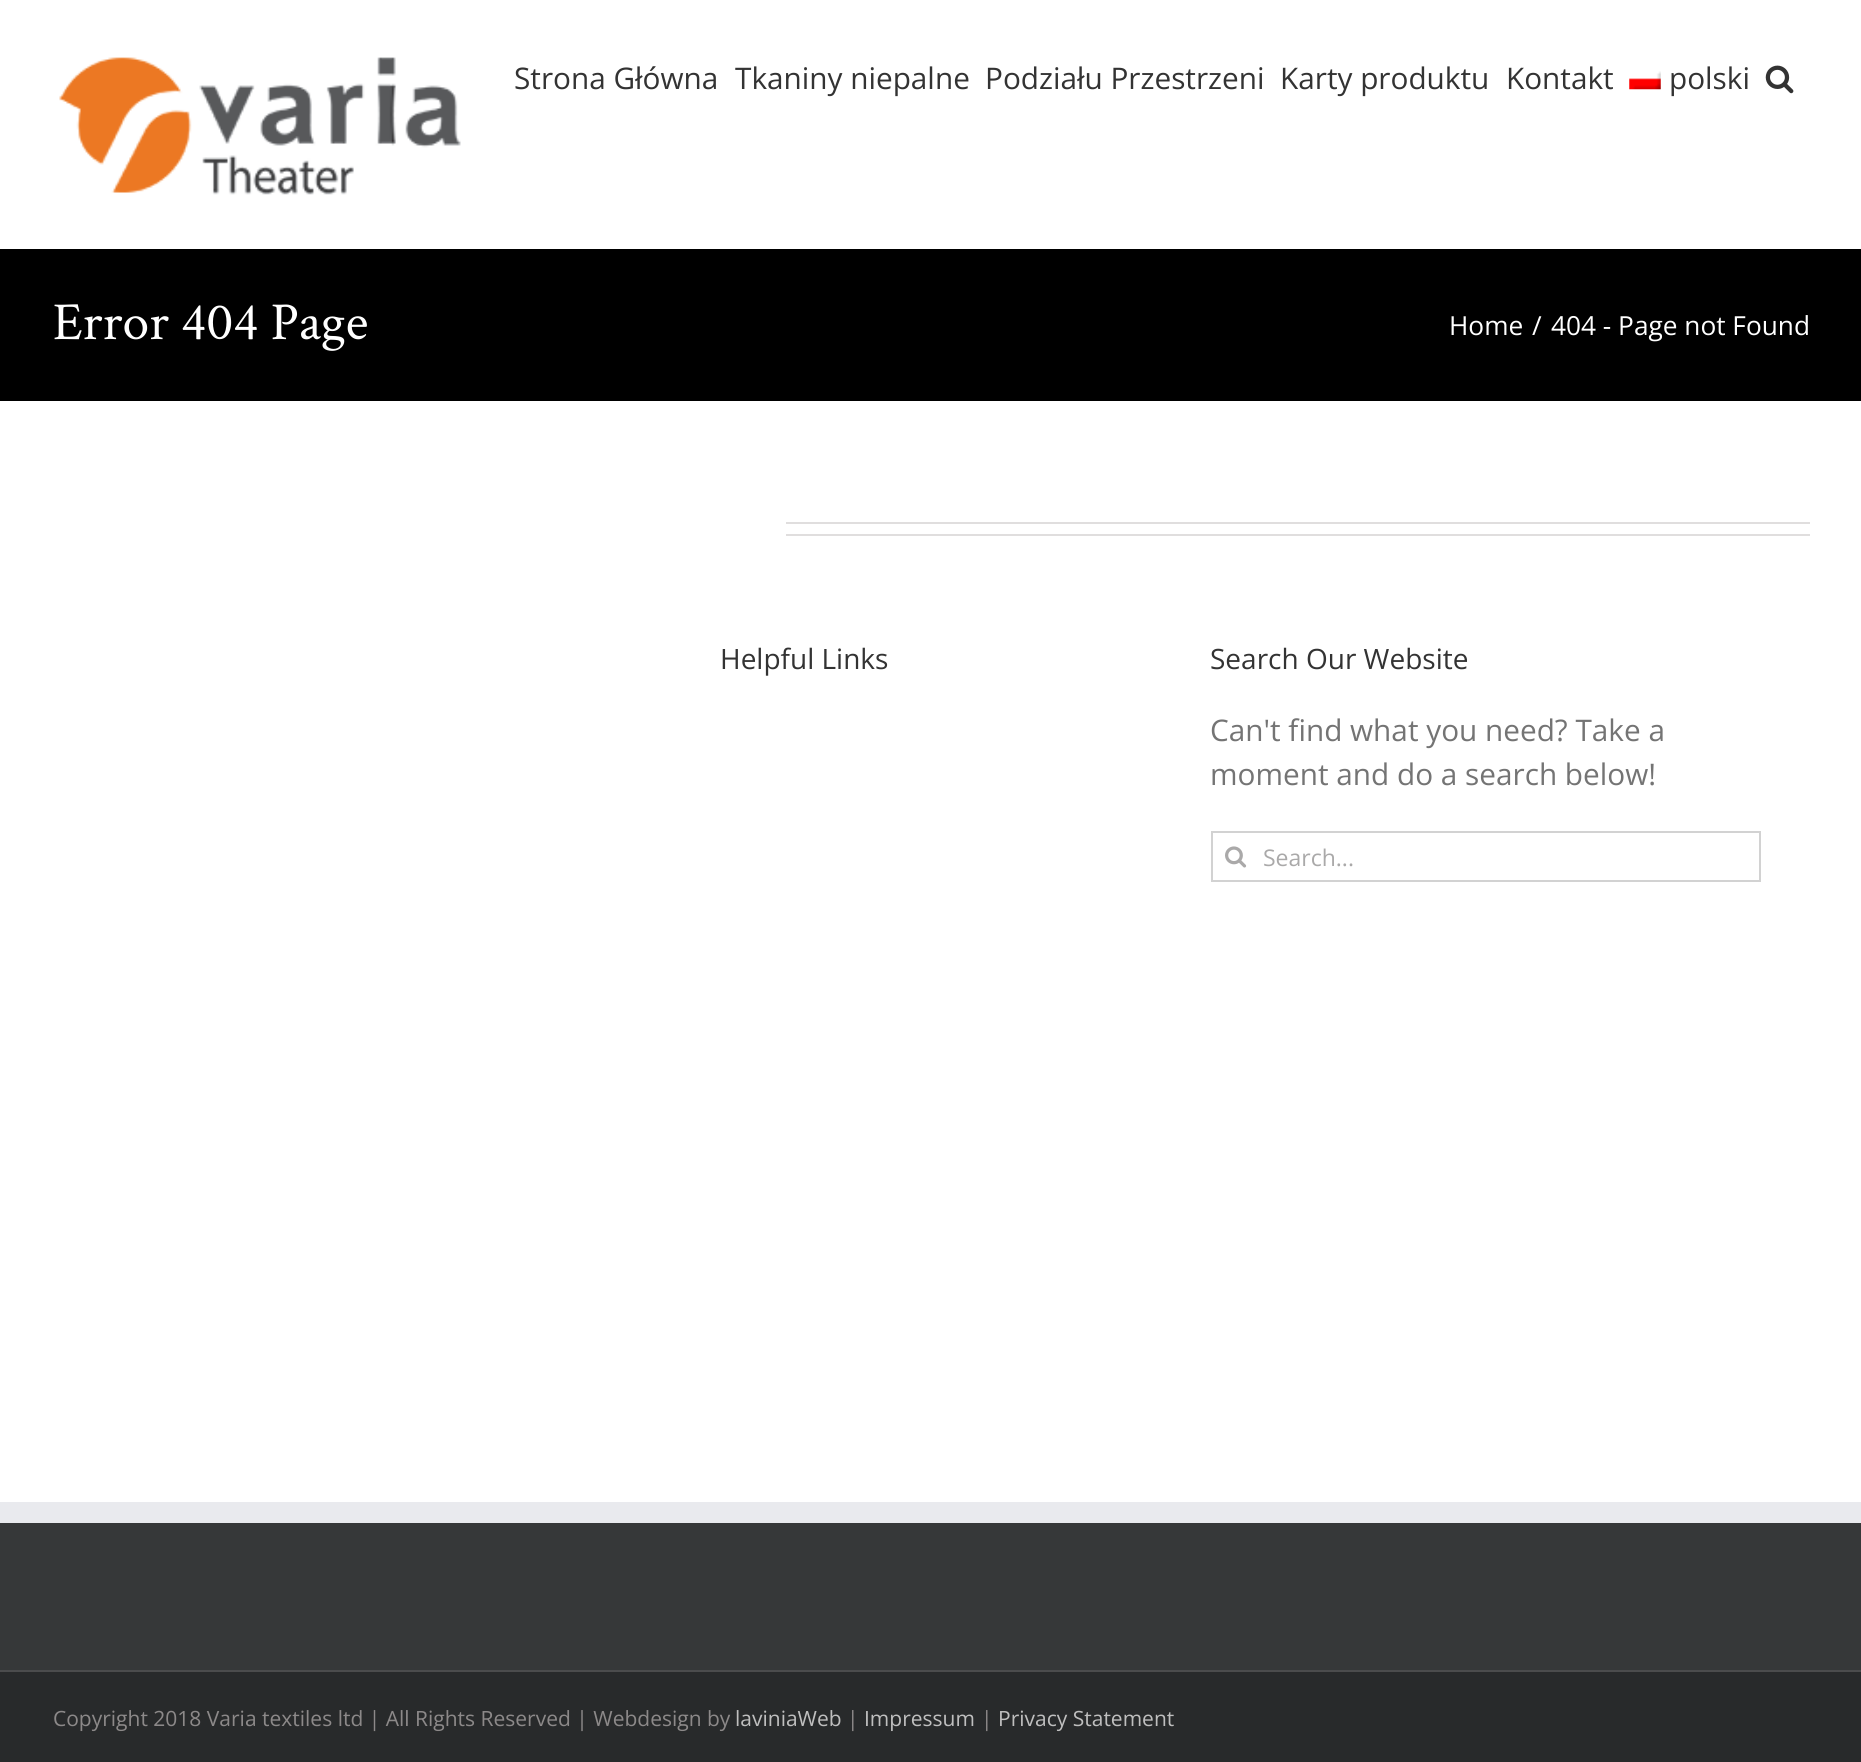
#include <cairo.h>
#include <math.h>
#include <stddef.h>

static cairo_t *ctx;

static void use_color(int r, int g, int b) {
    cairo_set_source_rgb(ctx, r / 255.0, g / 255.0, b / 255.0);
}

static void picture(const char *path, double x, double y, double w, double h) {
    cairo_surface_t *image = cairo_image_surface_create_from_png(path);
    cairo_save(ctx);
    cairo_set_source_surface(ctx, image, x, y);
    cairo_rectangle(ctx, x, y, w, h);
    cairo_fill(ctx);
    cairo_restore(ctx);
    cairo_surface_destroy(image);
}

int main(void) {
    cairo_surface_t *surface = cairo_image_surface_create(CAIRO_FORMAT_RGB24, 1861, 1762);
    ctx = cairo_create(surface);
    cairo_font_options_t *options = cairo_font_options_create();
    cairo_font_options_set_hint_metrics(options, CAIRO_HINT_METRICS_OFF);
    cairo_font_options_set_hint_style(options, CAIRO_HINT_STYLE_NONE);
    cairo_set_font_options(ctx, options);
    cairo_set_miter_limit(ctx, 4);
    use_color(255, 255, 255);
    cairo_paint(ctx);
    picture("img1.png", 59, 57, 402, 138);
    cairo_select_font_face(ctx, "Open Sans", CAIRO_FONT_SLANT_NORMAL, CAIRO_FONT_WEIGHT_NORMAL);
    cairo_set_font_size(ctx, 29.75);
    use_color(51, 51, 51);
    cairo_move_to(ctx, 514, 89);
    cairo_show_text(ctx, "Strona Główna");
    cairo_move_to(ctx, 735, 89);
    cairo_show_text(ctx, "Tkaniny niepalne");
    cairo_move_to(ctx, 985, 89);
    cairo_show_text(ctx, "Podziału Przestrzeni");
    cairo_move_to(ctx, 1280, 89);
    cairo_show_text(ctx, "Karty produktu");
    cairo_move_to(ctx, 1506, 89);
    cairo_show_text(ctx, "Kontakt");
    picture("img2.png", 1629, 71, 32, 19);
    cairo_move_to(ctx, 1669, 89);
    cairo_show_text(ctx, "polski");
    picture("img3.png", 1765, 65, 29, 29);
    use_color(0, 0, 0);
    cairo_rectangle(ctx, 0, 249, 1861, 152);
    cairo_fill(ctx);
    cairo_select_font_face(ctx, "Crimson Text", CAIRO_FONT_SLANT_NORMAL, CAIRO_FONT_WEIGHT_NORMAL);
    cairo_set_font_size(ctx, 53.5);
    use_color(255, 255, 255);
    cairo_move_to(ctx, 53, 339);
    cairo_show_text(ctx, "Error 404 Page");
    cairo_select_font_face(ctx, "Open Sans", CAIRO_FONT_SLANT_NORMAL, CAIRO_FONT_WEIGHT_NORMAL);
    cairo_set_font_size(ctx, 26.25);
    cairo_move_to(ctx, 1449, 335);
    cairo_show_text(ctx, "Home");
    cairo_move_to(ctx, 1532, 335);
    cairo_show_text(ctx, "/");
    cairo_move_to(ctx, 1551, 335);
    cairo_show_text(ctx, "404 - Page not Found");
    use_color(224, 222, 222);
    cairo_rectangle(ctx, 786, 522, 1024, 2);
    cairo_fill(ctx);
    cairo_rectangle(ctx, 786, 534, 1024, 2);
    cairo_fill(ctx);
    cairo_set_font_size(ctx, 28);
    use_color(51, 51, 51);
    cairo_move_to(ctx, 720, 669);
    cairo_show_text(ctx, "Helpful Links");
    cairo_move_to(ctx, 1210, 669);
    cairo_show_text(ctx, "Search Our Website");
    cairo_set_font_size(ctx, 29.75);
    use_color(116, 116, 116);
    cairo_move_to(ctx, 1210, 741);
    cairo_show_text(ctx, "Can't find what you need? Take a");
    cairo_move_to(ctx, 1210, 785);
    cairo_show_text(ctx, "moment and do a search below!");
    cairo_rectangle(ctx, 1212, 832, 548, 49);
    use_color(210, 210, 210);
    cairo_stroke(ctx);
    picture("img4.png", 1225, 846, 22, 22);
    cairo_set_font_size(ctx, 23);
    use_color(170, 169, 169);
    cairo_move_to(ctx, 1263, 866);
    cairo_show_text(ctx, "Search...");
    use_color(54, 56, 57);
    cairo_rectangle(ctx, 0, 1523, 1861, 147);
    cairo_fill(ctx);
    use_color(233, 234, 238);
    cairo_rectangle(ctx, 0, 1502, 1861, 21);
    cairo_fill(ctx);
    use_color(40, 42, 43);
    cairo_rectangle(ctx, 0, 1672, 1861, 90);
    cairo_fill(ctx);
    use_color(75, 76, 77);
    cairo_rectangle(ctx, 0, 1670, 1861, 2);
    cairo_fill(ctx);
    cairo_set_font_size(ctx, 21);
    use_color(140, 137, 137);
    cairo_move_to(ctx, 53, 1726);
    cairo_show_text(ctx, "Copyright 2018 Varia textiles ltd | All Rights Reserved | Webdesign by");
    use_color(191, 191, 191);
    cairo_move_to(ctx, 735, 1726);
    cairo_show_text(ctx, "laviniaWeb");
    use_color(140, 137, 137);
    cairo_move_to(ctx, 847, 1726);
    cairo_show_text(ctx, "|");
    use_color(191, 191, 191);
    cairo_move_to(ctx, 864, 1726);
    cairo_show_text(ctx, "Impressum");
    use_color(140, 137, 137);
    cairo_move_to(ctx, 981, 1726);
    cairo_show_text(ctx, "|");
    use_color(191, 191, 191);
    cairo_move_to(ctx, 998, 1726);
    cairo_show_text(ctx, "Privacy Statement");
    cairo_surface_write_to_png(surface, "result.png");
    cairo_font_options_destroy(options);
    cairo_destroy(ctx);
    cairo_surface_destroy(surface);
    return 0;
}
